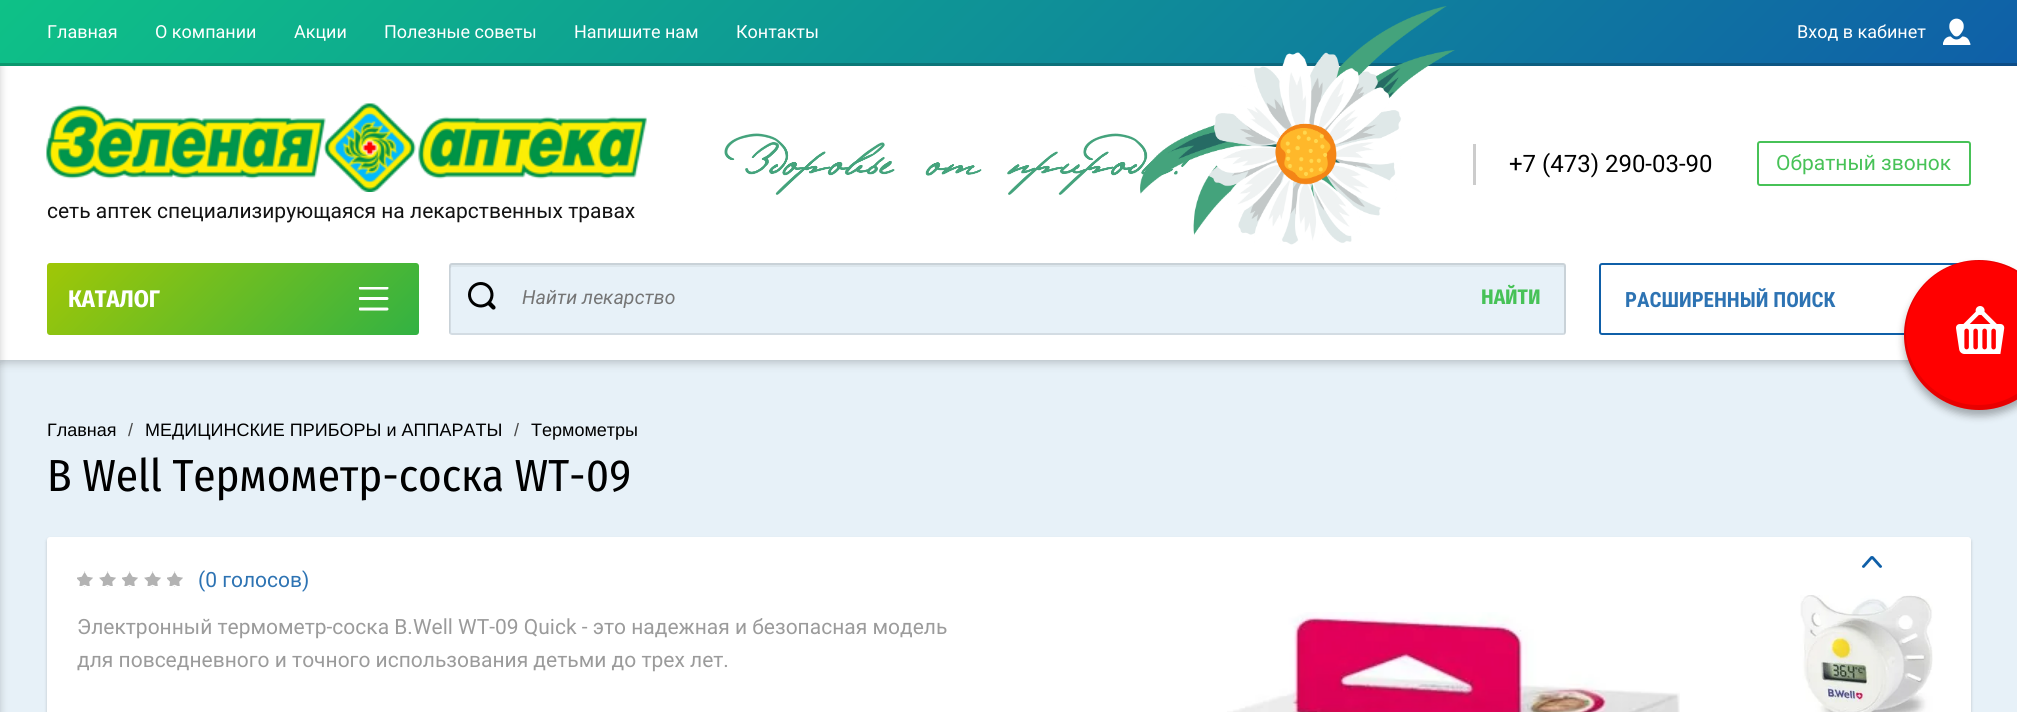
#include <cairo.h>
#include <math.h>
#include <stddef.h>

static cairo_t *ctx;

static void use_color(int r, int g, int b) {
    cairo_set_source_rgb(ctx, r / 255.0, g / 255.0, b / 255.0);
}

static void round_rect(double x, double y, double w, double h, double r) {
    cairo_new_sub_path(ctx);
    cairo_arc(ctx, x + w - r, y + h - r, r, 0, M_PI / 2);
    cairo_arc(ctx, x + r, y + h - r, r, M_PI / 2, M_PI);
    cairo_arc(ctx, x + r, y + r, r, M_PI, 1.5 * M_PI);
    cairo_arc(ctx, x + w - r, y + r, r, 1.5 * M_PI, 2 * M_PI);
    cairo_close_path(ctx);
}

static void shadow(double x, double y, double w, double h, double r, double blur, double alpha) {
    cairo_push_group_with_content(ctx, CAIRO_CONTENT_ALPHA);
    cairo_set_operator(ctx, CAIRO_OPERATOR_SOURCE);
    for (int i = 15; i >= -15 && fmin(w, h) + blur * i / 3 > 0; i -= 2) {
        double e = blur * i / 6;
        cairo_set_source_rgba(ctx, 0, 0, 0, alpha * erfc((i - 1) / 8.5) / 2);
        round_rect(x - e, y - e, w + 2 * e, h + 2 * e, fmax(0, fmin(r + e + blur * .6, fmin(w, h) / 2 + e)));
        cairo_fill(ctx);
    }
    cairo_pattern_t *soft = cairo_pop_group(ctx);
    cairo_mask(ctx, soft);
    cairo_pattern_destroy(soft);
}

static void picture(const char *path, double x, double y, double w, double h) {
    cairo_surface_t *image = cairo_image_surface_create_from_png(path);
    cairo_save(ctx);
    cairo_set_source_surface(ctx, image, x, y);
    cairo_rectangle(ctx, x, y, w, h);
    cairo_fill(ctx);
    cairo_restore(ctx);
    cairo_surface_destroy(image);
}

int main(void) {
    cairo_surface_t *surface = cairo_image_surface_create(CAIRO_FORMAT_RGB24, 2017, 712);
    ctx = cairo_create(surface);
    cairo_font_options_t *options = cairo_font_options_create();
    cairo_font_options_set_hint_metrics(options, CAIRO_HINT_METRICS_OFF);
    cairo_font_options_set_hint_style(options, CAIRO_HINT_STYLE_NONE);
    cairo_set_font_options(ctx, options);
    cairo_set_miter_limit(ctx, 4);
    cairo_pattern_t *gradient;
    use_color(231, 241, 248);
    cairo_paint(ctx);
    use_color(0, 0, 0);
    shadow(0, 3, 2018, 360, 0, 4.5, 0.2);
    use_color(255, 255, 255);
    cairo_rectangle(ctx, 0, 66, 2017, 294);
    cairo_fill(ctx);
    use_color(0, 0, 0);
    shadow(-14, 3, 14, 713, 0, 4.5, 0.2);
    gradient = cairo_pattern_create_linear(488, -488, 1530, 554);
    cairo_pattern_add_color_stop_rgba(gradient, 0, 0.055, 0.757, 0.529, 1);
    cairo_pattern_add_color_stop_rgba(gradient, 1, 0.059, 0.373, 0.659, 1);
    cairo_set_source(ctx, gradient);
    cairo_pattern_destroy(gradient);
    cairo_rectangle(ctx, 0, 0, 2017, 66);
    cairo_fill(ctx);
    cairo_set_source_rgba(ctx, 0, 0, 0, 0.2);
    cairo_rectangle(ctx, 0, 63, 2017, 3);
    cairo_fill(ctx);
    cairo_select_font_face(ctx, "Roboto", CAIRO_FONT_SLANT_NORMAL, CAIRO_FONT_WEIGHT_NORMAL);
    cairo_set_font_size(ctx, 18);
    use_color(255, 255, 255);
    cairo_move_to(ctx, 47, 38);
    cairo_show_text(ctx, "Главная");
    cairo_move_to(ctx, 155, 38);
    cairo_show_text(ctx, "О компании");
    cairo_move_to(ctx, 294, 38);
    cairo_show_text(ctx, "Акции");
    cairo_move_to(ctx, 384, 38);
    cairo_show_text(ctx, "Полезные советы");
    cairo_move_to(ctx, 574, 38);
    cairo_show_text(ctx, "Напишите нам");
    cairo_move_to(ctx, 736, 38);
    cairo_show_text(ctx, "Контакты");
    picture("img1.png", 1943, 18, 28, 27);
    picture("img3.png", 724, 133, 466, 62);
    picture("img2.png", 1140, 6, 315, 239);
    cairo_move_to(ctx, 1797, 38);
    cairo_show_text(ctx, "Вход в кабинет");
    use_color(204, 204, 204);
    cairo_rectangle(ctx, 1473, 144, 3, 41);
    cairo_fill(ctx);
    cairo_set_font_size(ctx, 24);
    use_color(0, 0, 0);
    cairo_move_to(ctx, 1509, 172);
    cairo_show_text(ctx, "+7 (473) 290-03-90");
    round_rect(1758, 142, 212, 43, 2);
    use_color(71, 194, 87);
    cairo_stroke(ctx);
    cairo_set_font_size(ctx, 21);
    cairo_move_to(ctx, 1776, 170);
    cairo_show_text(ctx, "Обратный звонок");
    picture("img4.png", 46, 103, 601, 89);
    use_color(18, 18, 18);
    cairo_move_to(ctx, 47, 218);
    cairo_show_text(ctx, "сеть аптек специализирующаяся на лекарственных травах");
    gradient = cairo_pattern_create_linear(121, 188, 344, 410);
    cairo_pattern_add_color_stop_rgba(gradient, 0, 0.627, 0.78, 0.024, 1);
    cairo_pattern_add_color_stop_rgba(gradient, 1, 0.196, 0.698, 0.263, 1);
    cairo_set_source(ctx, gradient);
    cairo_pattern_destroy(gradient);
    round_rect(47, 263, 372, 72, 3);
    cairo_fill(ctx);
    cairo_select_font_face(ctx, "Fira Sans Condensed", CAIRO_FONT_SLANT_NORMAL, CAIRO_FONT_WEIGHT_BOLD);
    cairo_set_font_size(ctx, 24);
    use_color(255, 255, 255);
    cairo_move_to(ctx, 68, 307);
    cairo_show_text(ctx, "КАТАЛОГ");
    picture("img5.png", 359, 287, 30, 24);
    use_color(231, 241, 248);
    round_rect(449, 263, 1117, 72, 3);
    cairo_fill(ctx);
    round_rect(450, 264, 1115, 70, 2);
    cairo_set_source_rgba(ctx, 0.125, 0.125, 0.125, 0.1);
    cairo_stroke(ctx);
    cairo_set_source_rgba(ctx, 0, 0, 0, 0.05);
    cairo_new_path(ctx);
    cairo_move_to(ctx, 452, 267);
    cairo_line_to(ctx, 1563, 267);
    cairo_curve_to(ctx, 1564, 267, 1564, 268, 1564, 268);
    cairo_line_to(ctx, 1564, 335);
    cairo_curve_to(ctx, 1565, 334, 1566, 333, 1566, 332);
    cairo_line_to(ctx, 1566, 266);
    cairo_curve_to(ctx, 1566, 264, 1565, 263, 1563, 263);
    cairo_line_to(ctx, 452, 263);
    cairo_curve_to(ctx, 450, 263, 449, 264, 449, 266);
    cairo_line_to(ctx, 449, 332);
    cairo_curve_to(ctx, 449, 333, 449, 334, 450, 334);
    cairo_line_to(ctx, 450, 268);
    cairo_close_path(ctx);
    cairo_fill(ctx);
    picture("img6.png", 468, 282, 28, 28);
    cairo_select_font_face(ctx, "Roboto", CAIRO_FONT_SLANT_ITALIC, CAIRO_FONT_WEIGHT_NORMAL);
    cairo_set_font_size(ctx, 19.5);
    use_color(117, 117, 117);
    cairo_move_to(ctx, 522, 304);
    cairo_show_text(ctx, "Найти лекарство");
    cairo_select_font_face(ctx, "Fira Sans Condensed", CAIRO_FONT_SLANT_NORMAL, CAIRO_FONT_WEIGHT_BOLD);
    cairo_set_font_size(ctx, 21);
    use_color(71, 194, 87);
    cairo_move_to(ctx, 1481, 304);
    cairo_show_text(ctx, "НАЙТИ");
    round_rect(1600, 264, 370, 70, 2);
    use_color(15, 95, 168);
    cairo_stroke(ctx);
    cairo_select_font_face(ctx, "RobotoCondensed", CAIRO_FONT_SLANT_NORMAL, CAIRO_FONT_WEIGHT_BOLD);
    use_color(45, 115, 179);
    cairo_move_to(ctx, 1625, 307);
    cairo_show_text(ctx, "РАСШИРЕННЫЙ ПОИСК");
    cairo_select_font_face(ctx, "Liberation Sans", CAIRO_FONT_SLANT_NORMAL, CAIRO_FONT_WEIGHT_NORMAL);
    cairo_set_font_size(ctx, 18);
    use_color(0, 0, 0);
    cairo_move_to(ctx, 47, 436);
    cairo_show_text(ctx, "Главная");
    use_color(74, 74, 74);
    cairo_move_to(ctx, 128, 436);
    cairo_show_text(ctx, "/");
    use_color(0, 0, 0);
    cairo_move_to(ctx, 145, 436);
    cairo_show_text(ctx, "МЕДИЦИНСКИЕ ПРИБОРЫ и АППАРАТЫ");
    use_color(74, 74, 74);
    cairo_move_to(ctx, 514, 436);
    cairo_show_text(ctx, "/");
    use_color(0, 0, 0);
    cairo_move_to(ctx, 531, 436);
    cairo_show_text(ctx, "Термометры");
    cairo_select_font_face(ctx, "Fira Sans Condensed", CAIRO_FONT_SLANT_NORMAL, CAIRO_FONT_WEIGHT_NORMAL);
    cairo_set_font_size(ctx, 45);
    cairo_move_to(ctx, 47, 491);
    cairo_show_text(ctx, "В Well Термометр-соска WT-09");
    use_color(0, 0, 0);
    shadow(47, 539, 1924, 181, 3, 1.5, 0.2);
    use_color(255, 255, 255);
    round_rect(47, 537, 1924, 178, 3);
    cairo_fill(ctx);
    picture("img7.png", 77, 571, 106, 16);
    cairo_select_font_face(ctx, "Roboto", CAIRO_FONT_SLANT_NORMAL, CAIRO_FONT_WEIGHT_NORMAL);
    cairo_set_font_size(ctx, 21);
    use_color(45, 115, 179);
    cairo_move_to(ctx, 198, 587);
    cairo_show_text(ctx, "(0 голосов)");
    use_color(155, 155, 155);
    cairo_move_to(ctx, 77, 634);
    cairo_show_text(ctx, "Электронный термометр-соска B.Well WT-09 Quick - это надежная и безопасная модель");
    cairo_move_to(ctx, 77, 667);
    cairo_show_text(ctx, "для повседневного и точного использования детьми до трех лет.");
    picture("img8.png", 1227, 612, 453, 100);
    use_color(15, 95, 168);
    cairo_new_path(ctx);
    cairo_move_to(ctx, 1862.5, 565.5);
    cairo_line_to(ctx, 1870.5, 556.5);
    cairo_curve_to(ctx, 1871, 556, 1872, 556, 1872.5, 556.5);
    cairo_curve_to(ctx, 1873, 557, 1873.5, 558, 1872.5, 558.5);
    cairo_line_to(ctx, 1864.5, 567.5);
    cairo_curve_to(ctx, 1864, 568, 1863, 568, 1862.5, 567.5);
    cairo_curve_to(ctx, 1862, 567, 1861.5, 566, 1862.5, 565.5);
    cairo_close_path(ctx);
    cairo_fill(ctx);
    cairo_new_path(ctx);
    cairo_move_to(ctx, 1879.5, 567.5);
    cairo_line_to(ctx, 1871.5, 558.5);
    cairo_curve_to(ctx, 1870.5, 558, 1871, 557, 1871.5, 556.5);
    cairo_curve_to(ctx, 1872, 556, 1873, 556, 1873.5, 556.5);
    cairo_line_to(ctx, 1881.5, 565.5);
    cairo_curve_to(ctx, 1882.5, 566, 1882, 567, 1881.5, 567.5);
    cairo_curve_to(ctx, 1881, 568, 1880, 568, 1879.5, 567.5);
    cairo_close_path(ctx);
    cairo_fill(ctx);
    picture("img9.png", 1800, 595, 133, 117);
    use_color(0, 0, 0);
    shadow(1904, 266, 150, 150, 75, 4, 0.3);
    use_color(255, 0, 0);
    cairo_arc(ctx, 1979, 335, 75, 0, 2 * M_PI);
    cairo_fill(ctx);
    cairo_set_source_rgba(ctx, 0, 0, 0, 0.09);
    cairo_set_fill_rule(ctx, CAIRO_FILL_RULE_EVEN_ODD);
    cairo_new_path(ctx);
    cairo_move_to(ctx, 1979, 260);
    cairo_curve_to(ctx, 1938, 260, 1904, 294, 1904, 335);
    cairo_curve_to(ctx, 1904, 376, 1938, 410, 1979, 410);
    cairo_curve_to(ctx, 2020, 410, 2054, 376, 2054, 335);
    cairo_curve_to(ctx, 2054, 294, 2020, 260, 1979, 260);
    cairo_close_path(ctx);
    cairo_move_to(ctx, 1978, 261);
    cairo_curve_to(ctx, 1939, 261, 1906, 293, 1906, 333);
    cairo_curve_to(ctx, 1906, 373, 1939, 405, 1978, 405);
    cairo_curve_to(ctx, 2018, 405, 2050, 373, 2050, 333);
    cairo_curve_to(ctx, 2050, 293, 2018, 261, 1978, 261);
    cairo_close_path(ctx);
    cairo_fill(ctx);
    picture("img10.png", 1956, 306, 49, 48);
    cairo_surface_write_to_png(surface, "result.png");
    cairo_font_options_destroy(options);
    cairo_destroy(ctx);
    cairo_surface_destroy(surface);
    return 0;
}
